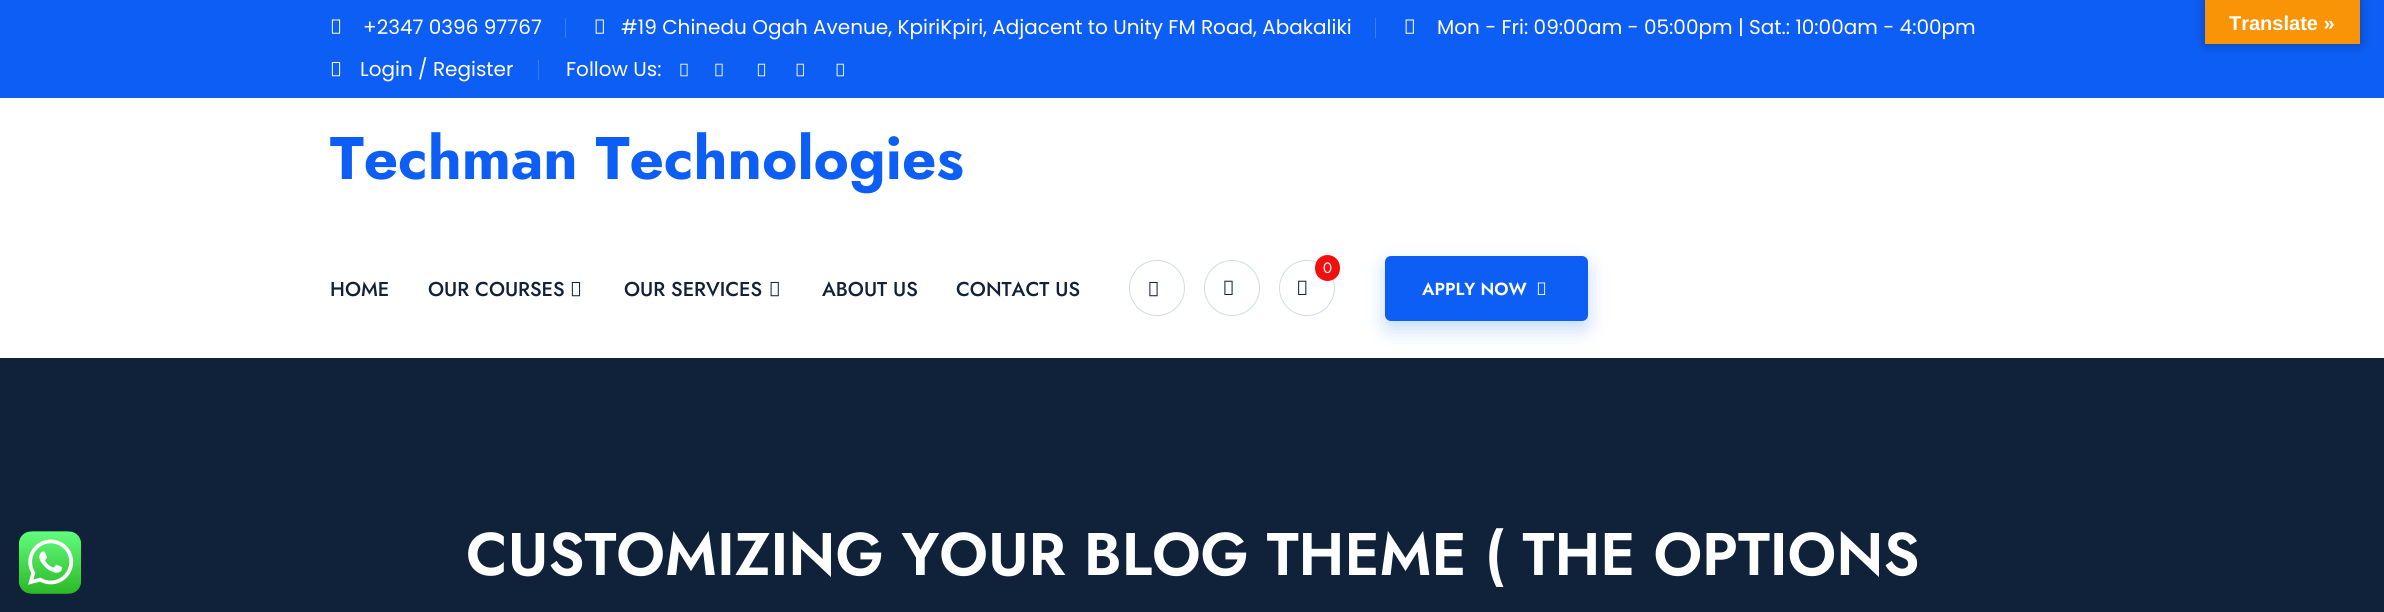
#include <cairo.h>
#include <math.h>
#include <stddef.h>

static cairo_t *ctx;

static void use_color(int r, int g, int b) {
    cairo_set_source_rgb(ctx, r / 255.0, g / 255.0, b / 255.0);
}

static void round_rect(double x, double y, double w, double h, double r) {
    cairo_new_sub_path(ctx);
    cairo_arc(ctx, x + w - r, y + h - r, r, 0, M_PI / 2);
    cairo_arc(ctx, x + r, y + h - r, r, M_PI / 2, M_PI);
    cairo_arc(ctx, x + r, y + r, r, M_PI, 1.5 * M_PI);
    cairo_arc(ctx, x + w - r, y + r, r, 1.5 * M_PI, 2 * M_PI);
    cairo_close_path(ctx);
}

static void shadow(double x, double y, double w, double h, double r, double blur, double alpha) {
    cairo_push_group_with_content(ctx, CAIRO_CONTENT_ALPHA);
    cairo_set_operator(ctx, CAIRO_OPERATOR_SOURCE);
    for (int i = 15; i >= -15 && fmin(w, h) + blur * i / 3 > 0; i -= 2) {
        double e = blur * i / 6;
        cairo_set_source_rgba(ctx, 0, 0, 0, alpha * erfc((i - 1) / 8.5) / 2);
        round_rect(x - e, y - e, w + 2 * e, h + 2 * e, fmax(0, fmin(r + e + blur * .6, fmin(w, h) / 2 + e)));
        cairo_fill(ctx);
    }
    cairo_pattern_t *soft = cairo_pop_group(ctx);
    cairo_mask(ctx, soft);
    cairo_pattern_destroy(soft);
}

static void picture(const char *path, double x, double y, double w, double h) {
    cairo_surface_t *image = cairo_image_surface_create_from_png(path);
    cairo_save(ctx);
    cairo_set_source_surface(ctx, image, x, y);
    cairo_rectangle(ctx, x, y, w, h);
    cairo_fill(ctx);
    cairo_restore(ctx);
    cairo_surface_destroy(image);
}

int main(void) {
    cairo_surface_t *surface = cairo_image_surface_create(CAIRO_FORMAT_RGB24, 2384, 612);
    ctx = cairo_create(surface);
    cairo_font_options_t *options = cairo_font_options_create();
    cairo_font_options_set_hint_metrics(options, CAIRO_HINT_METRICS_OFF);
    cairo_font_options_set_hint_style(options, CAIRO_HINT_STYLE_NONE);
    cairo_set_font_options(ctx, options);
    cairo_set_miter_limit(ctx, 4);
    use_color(255, 255, 255);
    cairo_paint(ctx);
    use_color(13, 94, 244);
    cairo_rectangle(ctx, 0, 0, 2384, 98);
    cairo_fill(ctx);
    picture("img1.png", 331, 19, 10, 15);
    cairo_select_font_face(ctx, "Poppins", CAIRO_FONT_SLANT_NORMAL, CAIRO_FONT_WEIGHT_NORMAL);
    cairo_set_font_size(ctx, 20);
    use_color(255, 255, 255);
    cairo_move_to(ctx, 363, 34);
    cairo_show_text(ctx, "+2347 0396 97767");
    use_color(61, 126, 246);
    cairo_rectangle(ctx, 565, 18, 1, 20);
    cairo_fill(ctx);
    picture("img2.png", 595, 19, 9, 15);
    use_color(255, 255, 255);
    cairo_move_to(ctx, 621, 34);
    cairo_show_text(ctx, "#19 Chinedu Ogah Avenue, KpiriKpiri, Adjacent to Unity FM Road, Abakaliki");
    use_color(61, 126, 246);
    cairo_rectangle(ctx, 1375, 18, 1, 20);
    cairo_fill(ctx);
    picture("img2.png", 1405, 19, 9, 15);
    use_color(255, 255, 255);
    cairo_move_to(ctx, 1437, 34);
    cairo_show_text(ctx, "Mon - Fri: 09:00am - 05:00pm | Sat.: 10:00am - 4:00pm");
    picture("img3.png", 331, 61, 10, 16);
    cairo_move_to(ctx, 360, 76);
    cairo_show_text(ctx, "Login / Register");
    use_color(61, 126, 246);
    cairo_rectangle(ctx, 538, 60, 1, 20);
    cairo_fill(ctx);
    use_color(255, 255, 255);
    cairo_move_to(ctx, 566, 76);
    cairo_show_text(ctx, "Follow Us:");
    picture("img4.png", 680, 63, 8, 14);
    picture("img4.png", 715, 63, 8, 14);
    picture("img5.png", 757, 63, 9, 14);
    picture("img6.png", 796, 63, 8, 14);
    picture("img6.png", 836, 63, 8, 14);
    cairo_select_font_face(ctx, "Jost", CAIRO_FONT_SLANT_NORMAL, CAIRO_FONT_WEIGHT_BOLD);
    cairo_set_font_size(ctx, 60);
    use_color(13, 94, 244);
    cairo_move_to(ctx, 330, 179);
    cairo_show_text(ctx, "Techman Technologies");
    cairo_select_font_face(ctx, "Jost Medium", CAIRO_FONT_SLANT_NORMAL, CAIRO_FONT_WEIGHT_NORMAL);
    cairo_set_font_size(ctx, 20);
    use_color(15, 34, 57);
    cairo_move_to(ctx, 330, 296);
    cairo_show_text(ctx, "HOME");
    cairo_move_to(ctx, 428, 296);
    cairo_show_text(ctx, "OUR COURSES");
    picture("img7.png", 571, 281, 10, 16);
    cairo_move_to(ctx, 624, 296);
    cairo_show_text(ctx, "OUR SERVICES");
    picture("img8.png", 770, 281, 9, 16);
    cairo_move_to(ctx, 822, 296);
    cairo_show_text(ctx, "ABOUT US");
    cairo_move_to(ctx, 956, 296);
    cairo_show_text(ctx, "CONTACT US");
    cairo_new_path(ctx);
    cairo_arc(ctx, 1157, 288, 27.5, 0, 2 * M_PI);
    use_color(208, 219, 233);
    cairo_set_line_width(ctx, 1);
    cairo_stroke(ctx);
    picture("img9.png", 1149, 281, 9, 16);
    cairo_arc(ctx, 1232, 288, 27.5, 0, 2 * M_PI);
    cairo_stroke(ctx);
    picture("img10.png", 1224, 280, 9, 15);
    cairo_arc(ctx, 1307, 288, 27.5, 0, 2 * M_PI);
    cairo_stroke(ctx);
    use_color(242, 15, 16);
    round_rect(1315, 255, 25, 26, 12.5);
    cairo_fill(ctx);
    cairo_select_font_face(ctx, "Jost", CAIRO_FONT_SLANT_NORMAL, CAIRO_FONT_WEIGHT_NORMAL);
    cairo_set_font_size(ctx, 15);
    use_color(255, 255, 255);
    cairo_move_to(ctx, 1323, 273);
    cairo_show_text(ctx, "0");
    picture("img11.png", 1298, 280, 9, 15);
    use_color(15, 34, 57);
    cairo_rectangle(ctx, 0, 358, 2384, 254);
    cairo_fill(ctx);
    use_color(13, 94, 244);
    shadow(1385, 264, 203, 65, 6, 10, 0.24);
    use_color(13, 94, 244);
    round_rect(1385, 256, 203, 65, 6);
    cairo_fill(ctx);
    cairo_select_font_face(ctx, "Jost SemiBold", CAIRO_FONT_SLANT_NORMAL, CAIRO_FONT_WEIGHT_NORMAL);
    cairo_set_font_size(ctx, 17.5);
    use_color(255, 255, 255);
    cairo_move_to(ctx, 1422, 295);
    cairo_show_text(ctx, "APPLY NOW");
    picture("img12.png", 1537, 282, 9, 13);
    use_color(0, 0, 0);
    shadow(2205, 0, 155, 44, 0, 5.5, 0.3);
    use_color(248, 148, 6);
    cairo_rectangle(ctx, 2205, 0, 155, 44);
    cairo_fill(ctx);
    cairo_select_font_face(ctx, "Liberation Sans", CAIRO_FONT_SLANT_NORMAL, CAIRO_FONT_WEIGHT_BOLD);
    cairo_set_font_size(ctx, 20);
    use_color(255, 255, 255);
    cairo_move_to(ctx, 2229, 30);
    cairo_show_text(ctx, "Translate »");
    picture("img13.png", 19, 531, 62, 63);
    cairo_select_font_face(ctx, "Jost SemiBold", CAIRO_FONT_SLANT_NORMAL, CAIRO_FONT_WEIGHT_NORMAL);
    cairo_set_font_size(ctx, 60);
    cairo_move_to(ctx, 466, 575);
    cairo_show_text(ctx, "CUSTOMIZING YOUR BLOG THEME ( THE OPTIONS");
    cairo_surface_write_to_png(surface, "result.png");
    cairo_font_options_destroy(options);
    cairo_destroy(ctx);
    cairo_surface_destroy(surface);
    return 0;
}
